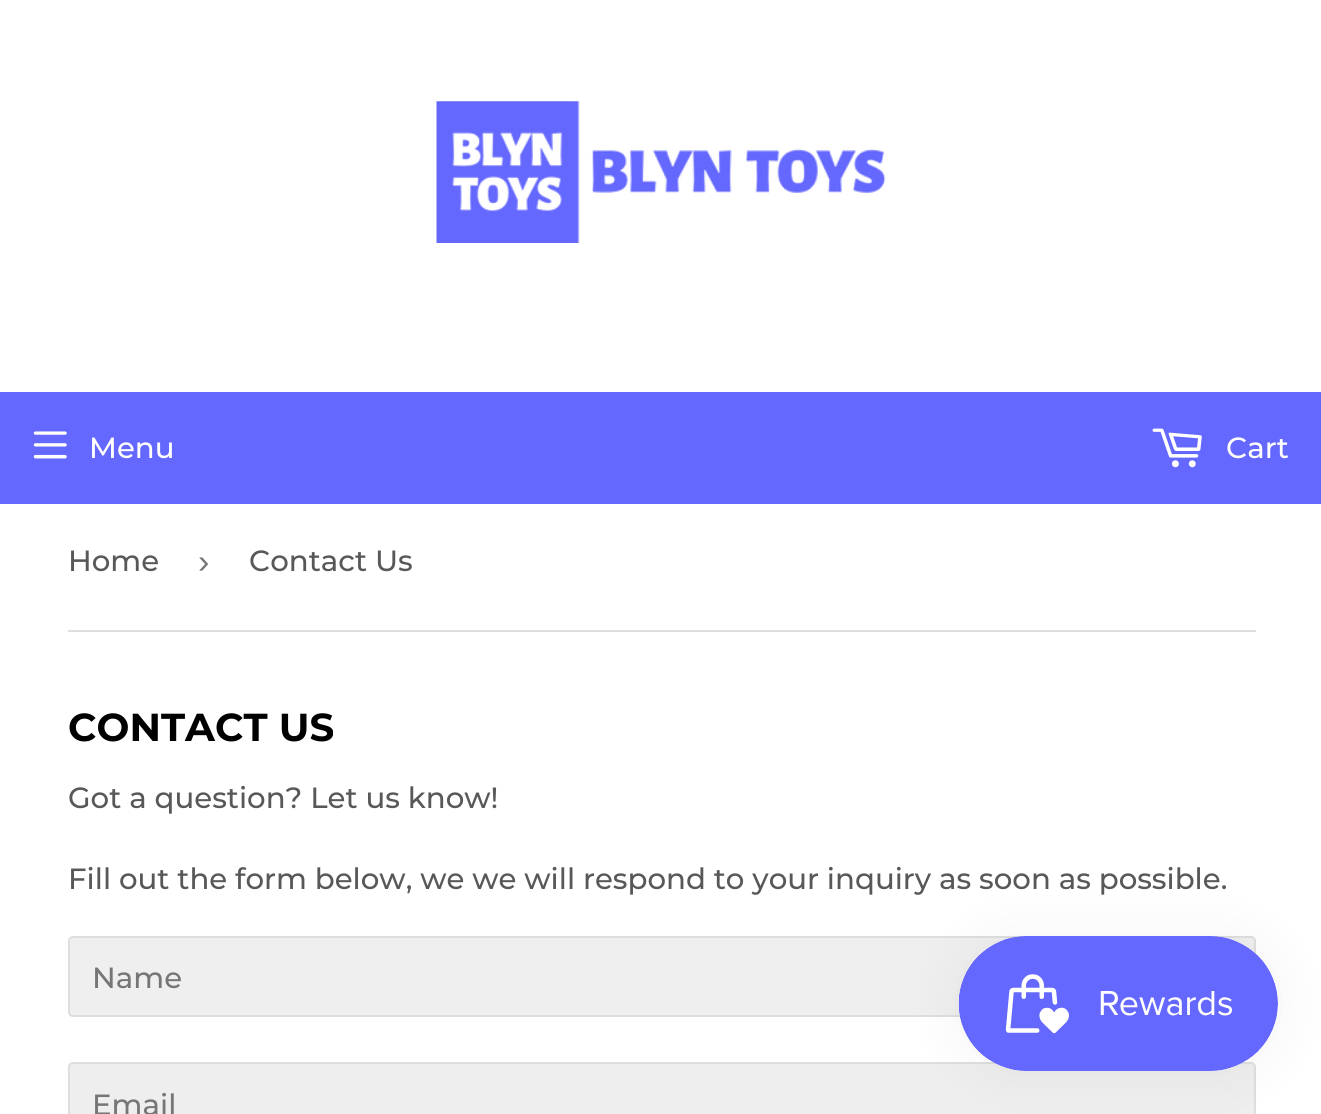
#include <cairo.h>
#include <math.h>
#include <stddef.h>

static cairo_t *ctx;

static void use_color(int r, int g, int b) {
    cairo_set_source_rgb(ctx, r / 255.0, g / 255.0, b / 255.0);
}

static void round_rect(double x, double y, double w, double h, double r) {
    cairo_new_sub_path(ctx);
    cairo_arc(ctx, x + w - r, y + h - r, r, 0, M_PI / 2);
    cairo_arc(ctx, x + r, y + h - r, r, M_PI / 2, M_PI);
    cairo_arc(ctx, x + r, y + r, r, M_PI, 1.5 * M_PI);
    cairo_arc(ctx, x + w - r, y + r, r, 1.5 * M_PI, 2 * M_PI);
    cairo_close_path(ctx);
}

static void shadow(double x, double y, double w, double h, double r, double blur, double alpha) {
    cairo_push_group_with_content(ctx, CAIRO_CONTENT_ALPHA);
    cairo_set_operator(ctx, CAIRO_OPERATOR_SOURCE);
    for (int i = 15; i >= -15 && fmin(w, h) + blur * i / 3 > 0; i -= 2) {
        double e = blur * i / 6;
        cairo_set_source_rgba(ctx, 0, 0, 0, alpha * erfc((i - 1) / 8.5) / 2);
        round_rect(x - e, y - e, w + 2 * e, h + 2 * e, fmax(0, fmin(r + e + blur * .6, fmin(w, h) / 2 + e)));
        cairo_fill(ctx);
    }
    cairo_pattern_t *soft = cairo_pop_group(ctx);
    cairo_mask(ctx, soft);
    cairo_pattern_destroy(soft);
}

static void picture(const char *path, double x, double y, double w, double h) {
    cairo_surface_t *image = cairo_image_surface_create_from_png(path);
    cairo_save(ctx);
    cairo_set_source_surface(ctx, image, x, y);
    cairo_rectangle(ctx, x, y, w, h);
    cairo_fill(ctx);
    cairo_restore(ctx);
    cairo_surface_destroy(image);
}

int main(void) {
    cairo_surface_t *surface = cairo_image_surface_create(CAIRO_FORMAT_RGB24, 1321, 1114);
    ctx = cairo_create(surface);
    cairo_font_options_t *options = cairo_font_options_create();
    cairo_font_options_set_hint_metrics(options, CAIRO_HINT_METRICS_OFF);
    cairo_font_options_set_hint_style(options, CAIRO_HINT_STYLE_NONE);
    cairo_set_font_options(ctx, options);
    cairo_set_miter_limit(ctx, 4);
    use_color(255, 255, 255);
    cairo_paint(ctx);
    picture("img1.png", 436, 101, 450, 142);
    use_color(101, 104, 254);
    cairo_rectangle(ctx, 0, 392, 1321, 112);
    cairo_fill(ctx);
    picture("img2.png", 33, 431, 34, 28);
    cairo_select_font_face(ctx, "Montserrat Medium", CAIRO_FONT_SLANT_NORMAL, CAIRO_FONT_WEIGHT_NORMAL);
    cairo_set_font_size(ctx, 29.25);
    use_color(255, 255, 255);
    cairo_move_to(ctx, 89, 458);
    cairo_show_text(ctx, "Menu");
    picture("img3.png", 1152, 428, 50, 40);
    cairo_move_to(ctx, 1226, 458);
    cairo_show_text(ctx, "Cart");
    use_color(222, 222, 222);
    cairo_rectangle(ctx, 68, 630, 1188, 2);
    cairo_fill(ctx);
    use_color(88, 88, 88);
    cairo_move_to(ctx, 68, 571);
    cairo_show_text(ctx, "Home");
    cairo_select_font_face(ctx, "Liberation Sans", CAIRO_FONT_SLANT_NORMAL, CAIRO_FONT_WEIGHT_NORMAL);
    cairo_set_font_size(ctx, 34);
    use_color(118, 118, 118);
    cairo_move_to(ctx, 198, 573);
    cairo_show_text(ctx, "›");
    cairo_select_font_face(ctx, "Montserrat Medium", CAIRO_FONT_SLANT_NORMAL, CAIRO_FONT_WEIGHT_NORMAL);
    cairo_set_font_size(ctx, 29.25);
    use_color(88, 88, 88);
    cairo_move_to(ctx, 249, 571);
    cairo_show_text(ctx, "Contact Us");
    cairo_select_font_face(ctx, "Montserrat", CAIRO_FONT_SLANT_NORMAL, CAIRO_FONT_WEIGHT_BOLD);
    cairo_set_font_size(ctx, 39);
    use_color(0, 0, 0);
    cairo_move_to(ctx, 68, 741);
    cairo_show_text(ctx, "CONTACT US");
    cairo_select_font_face(ctx, "Montserrat Medium", CAIRO_FONT_SLANT_NORMAL, CAIRO_FONT_WEIGHT_NORMAL);
    cairo_set_font_size(ctx, 29.25);
    use_color(88, 88, 88);
    cairo_move_to(ctx, 68, 808);
    cairo_show_text(ctx, "Got a question? Let us know!");
    cairo_move_to(ctx, 68, 889);
    cairo_show_text(ctx, "Fill out the form below, we we will respond to your inquiry as soon as possible.");
    use_color(239, 239, 239);
    round_rect(69, 937, 1186, 79, 4);
    cairo_fill_preserve(ctx);
    use_color(222, 222, 222);
    cairo_stroke(ctx);
    use_color(118, 118, 118);
    cairo_move_to(ctx, 92, 988);
    cairo_show_text(ctx, "Name");
    use_color(238, 238, 238);
    round_rect(69, 1063, 1186, 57, 4);
    cairo_fill_preserve(ctx);
    use_color(222, 222, 222);
    cairo_stroke(ctx);
    use_color(118, 118, 118);
    cairo_move_to(ctx, 92, 1115);
    cairo_show_text(ctx, "Email");
    use_color(0, 0, 0);
    shadow(959, 936, 319, 135, 67.5, 28, 0.05);
    picture("img4.png", 958, 936, 320, 135);
    cairo_surface_write_to_png(surface, "result.png");
    cairo_font_options_destroy(options);
    cairo_destroy(ctx);
    cairo_surface_destroy(surface);
    return 0;
}
